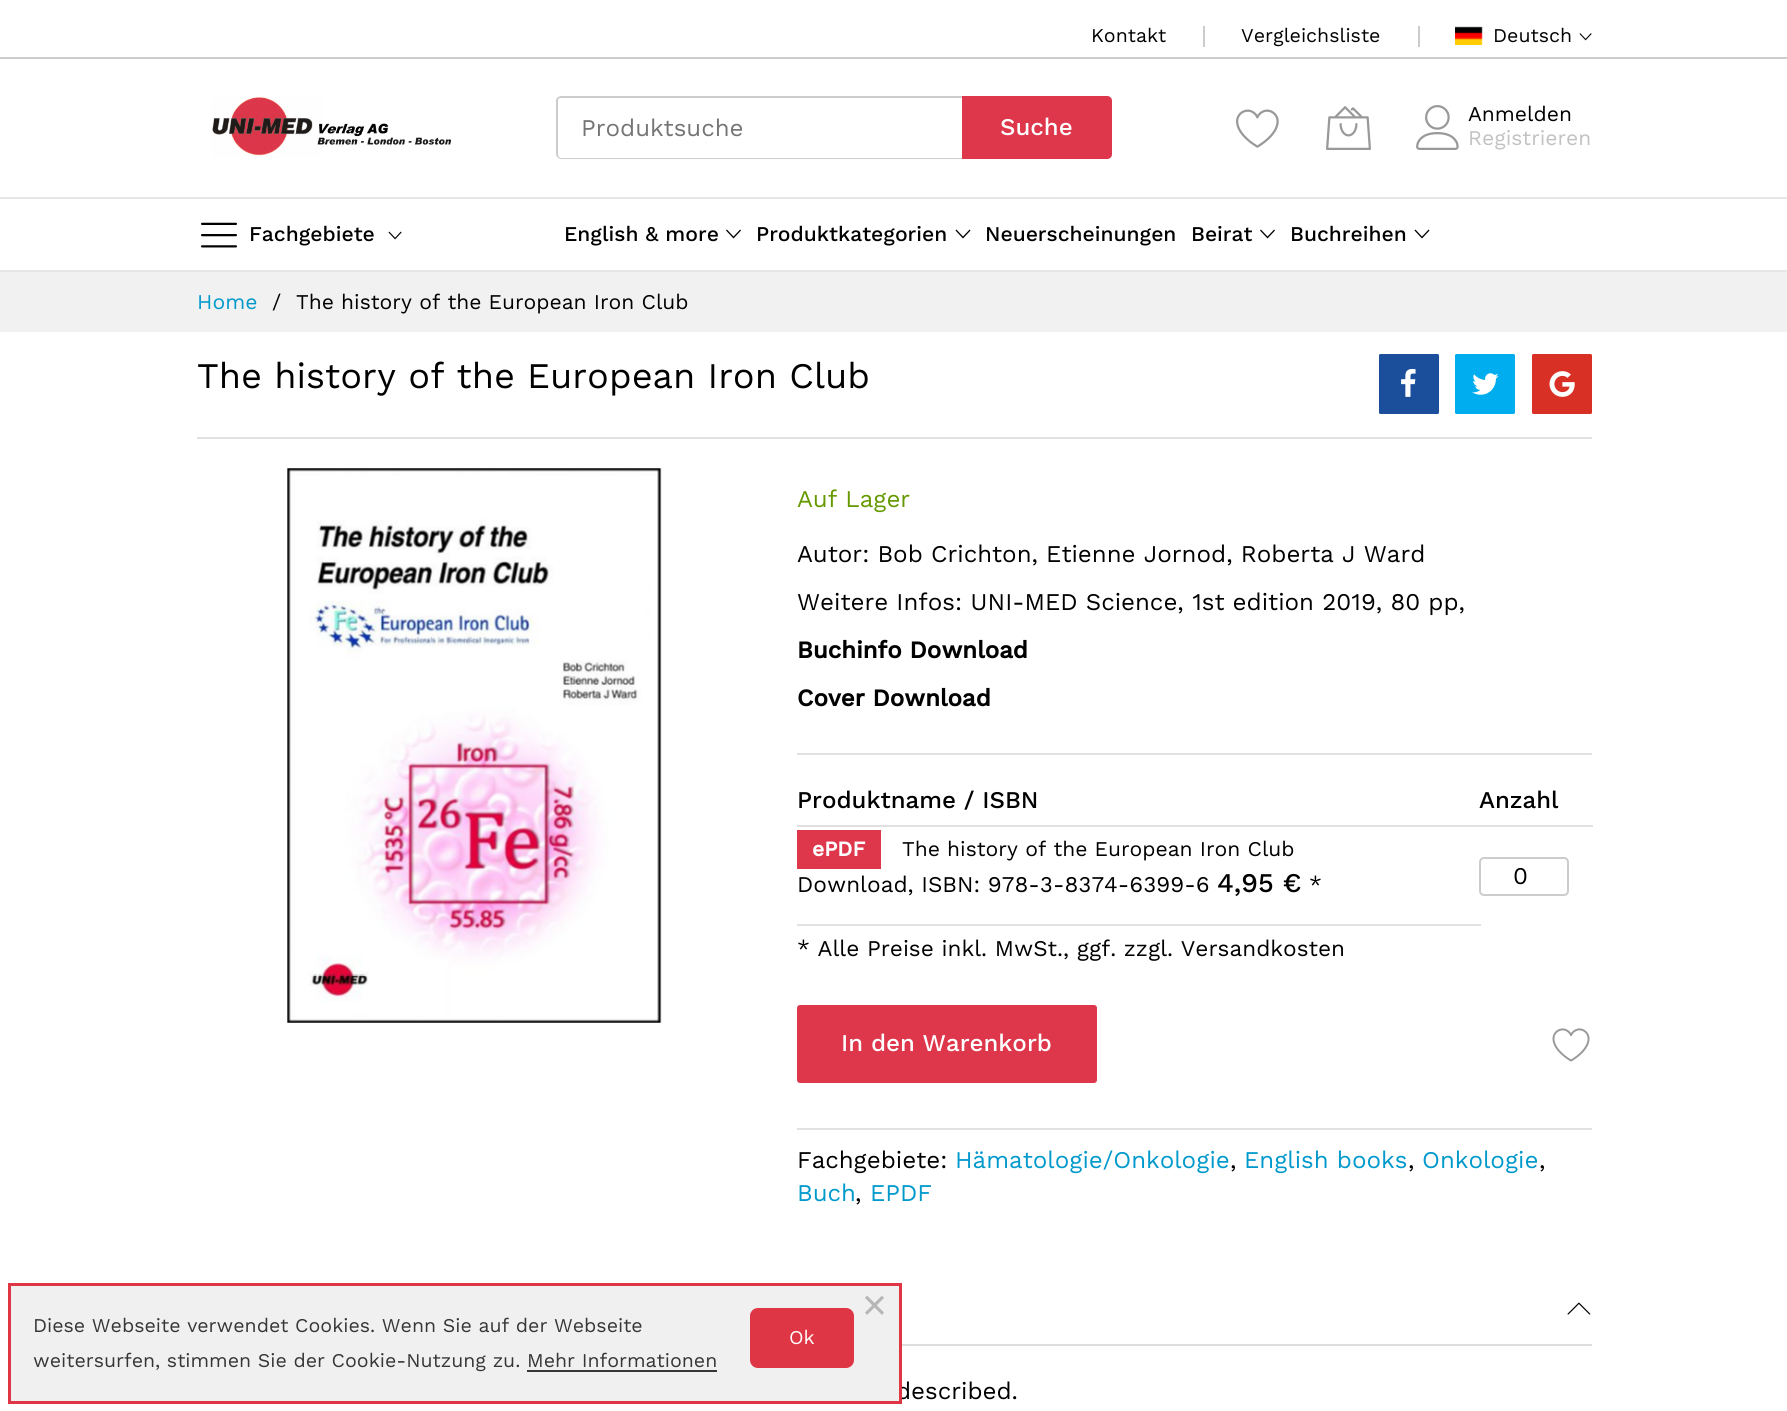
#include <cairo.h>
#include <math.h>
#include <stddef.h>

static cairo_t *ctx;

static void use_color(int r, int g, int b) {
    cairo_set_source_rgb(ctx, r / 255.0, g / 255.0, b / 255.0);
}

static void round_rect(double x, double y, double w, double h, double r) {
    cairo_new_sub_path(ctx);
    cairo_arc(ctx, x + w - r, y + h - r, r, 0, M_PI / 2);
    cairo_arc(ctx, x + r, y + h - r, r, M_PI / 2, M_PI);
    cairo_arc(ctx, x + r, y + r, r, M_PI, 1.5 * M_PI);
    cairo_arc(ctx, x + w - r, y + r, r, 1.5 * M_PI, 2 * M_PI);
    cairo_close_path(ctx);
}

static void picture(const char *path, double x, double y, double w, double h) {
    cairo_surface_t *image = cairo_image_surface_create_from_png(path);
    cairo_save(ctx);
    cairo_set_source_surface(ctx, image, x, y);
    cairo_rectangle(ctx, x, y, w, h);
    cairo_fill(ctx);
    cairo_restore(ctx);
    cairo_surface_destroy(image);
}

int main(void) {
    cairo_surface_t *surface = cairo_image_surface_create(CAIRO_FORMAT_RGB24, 1787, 1411);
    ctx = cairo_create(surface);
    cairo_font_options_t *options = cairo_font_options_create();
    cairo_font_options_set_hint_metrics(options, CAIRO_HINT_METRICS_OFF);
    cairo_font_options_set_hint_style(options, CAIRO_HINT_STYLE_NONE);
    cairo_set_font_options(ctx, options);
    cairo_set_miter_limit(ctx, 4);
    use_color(255, 255, 255);
    cairo_paint(ctx);
    use_color(204, 204, 204);
    cairo_rectangle(ctx, 0, 57, 1787, 2);
    cairo_fill(ctx);
    cairo_select_font_face(ctx, "Work Sans", CAIRO_FONT_SLANT_NORMAL, CAIRO_FONT_WEIGHT_NORMAL);
    cairo_set_font_size(ctx, 19.5);
    use_color(0, 0, 0);
    cairo_move_to(ctx, 1091, 42);
    cairo_show_text(ctx, "Kontakt");
    use_color(204, 204, 204);
    cairo_rectangle(ctx, 1203, 26, 2, 21);
    cairo_fill(ctx);
    use_color(0, 0, 0);
    cairo_move_to(ctx, 1241, 42);
    cairo_show_text(ctx, "Vergleichsliste");
    use_color(204, 204, 204);
    cairo_rectangle(ctx, 1418, 26, 2, 21);
    cairo_fill(ctx);
    picture("img1.png", 1455, 26, 28, 19);
    use_color(0, 0, 0);
    cairo_move_to(ctx, 1493, 42);
    cairo_show_text(ctx, "Deutsch");
    picture("img2.png", 1579, 33, 13, 8);
    use_color(204, 204, 204);
    cairo_set_fill_rule(ctx, CAIRO_FILL_RULE_EVEN_ODD);
    cairo_new_path(ctx);
    cairo_move_to(ctx, 561, 96);
    cairo_line_to(ctx, 962, 96);
    cairo_line_to(ctx, 962, 159);
    cairo_line_to(ctx, 561, 159);
    cairo_curve_to(ctx, 559, 159, 556, 157, 556, 154);
    cairo_line_to(ctx, 556, 100);
    cairo_curve_to(ctx, 556, 98, 559, 96, 561, 96);
    cairo_close_path(ctx);
    cairo_move_to(ctx, 561, 98);
    cairo_line_to(ctx, 962, 98);
    cairo_line_to(ctx, 962, 158);
    cairo_line_to(ctx, 561, 158);
    cairo_curve_to(ctx, 559, 158, 558, 156, 558, 154);
    cairo_line_to(ctx, 558, 100);
    cairo_curve_to(ctx, 558, 99, 559, 98, 561, 98);
    cairo_close_path(ctx);
    cairo_fill(ctx);
    cairo_set_font_size(ctx, 24);
    use_color(117, 117, 117);
    cairo_move_to(ctx, 581, 136);
    cairo_show_text(ctx, "Produktsuche");
    use_color(222, 54, 74);
    cairo_new_path(ctx);
    cairo_move_to(ctx, 962, 96);
    cairo_line_to(ctx, 1107, 96);
    cairo_curve_to(ctx, 1110, 96, 1112, 98, 1112, 101);
    cairo_line_to(ctx, 1112, 154);
    cairo_curve_to(ctx, 1112, 157, 1110, 159, 1107, 159);
    cairo_line_to(ctx, 962, 159);
    cairo_close_path(ctx);
    cairo_fill(ctx);
    cairo_select_font_face(ctx, "Work Sans Medium", CAIRO_FONT_SLANT_NORMAL, CAIRO_FONT_WEIGHT_NORMAL);
    use_color(255, 255, 255);
    cairo_move_to(ctx, 1000, 135);
    cairo_show_text(ctx, "Suche");
    picture("img3.png", 1236, 109, 43, 39);
    picture("img4.png", 1326, 106, 45, 44);
    picture("img5.png", 1416, 105, 43, 45);
    cairo_select_font_face(ctx, "Work Sans", CAIRO_FONT_SLANT_NORMAL, CAIRO_FONT_WEIGHT_NORMAL);
    cairo_set_font_size(ctx, 21);
    use_color(0, 0, 0);
    cairo_move_to(ctx, 1468, 121);
    cairo_show_text(ctx, "Anmelden");
    use_color(194, 194, 194);
    cairo_move_to(ctx, 1468, 145);
    cairo_show_text(ctx, "Registrieren");
    picture("img6.png", 211, 97, 241, 61);
    picture("img7.png", 201, 222, 36, 26);
    cairo_select_font_face(ctx, "Work Sans Medium", CAIRO_FONT_SLANT_NORMAL, CAIRO_FONT_WEIGHT_NORMAL);
    use_color(0, 0, 0);
    cairo_move_to(ctx, 249, 241);
    cairo_show_text(ctx, "Fachgebiete");
    picture("img8.png", 388, 231, 14, 9);
    use_color(230, 230, 230);
    cairo_rectangle(ctx, 0, 197, 1787, 2);
    cairo_fill(ctx);
    cairo_rectangle(ctx, 0, 270, 1787, 2);
    cairo_fill(ctx);
    use_color(0, 0, 0);
    cairo_move_to(ctx, 564, 241);
    cairo_show_text(ctx, "English & more");
    picture("img9.png", 726, 229, 15, 10);
    cairo_move_to(ctx, 756, 241);
    cairo_show_text(ctx, "Produktkategorien");
    picture("img10.png", 955, 229, 16, 10);
    cairo_move_to(ctx, 985, 241);
    cairo_show_text(ctx, "Neuerscheinungen");
    cairo_move_to(ctx, 1191, 241);
    cairo_show_text(ctx, "Beirat");
    picture("img9.png", 1260, 229, 15, 10);
    cairo_move_to(ctx, 1290, 241);
    cairo_show_text(ctx, "Buchreihen");
    picture("img10.png", 1414, 229, 16, 10);
    use_color(241, 241, 241);
    cairo_rectangle(ctx, 0, 272, 1787, 60);
    cairo_fill(ctx);
    cairo_select_font_face(ctx, "Work Sans", CAIRO_FONT_SLANT_NORMAL, CAIRO_FONT_WEIGHT_NORMAL);
    use_color(0, 153, 204);
    cairo_move_to(ctx, 197, 309);
    cairo_show_text(ctx, "Home");
    use_color(0, 0, 0);
    cairo_move_to(ctx, 272, 309);
    cairo_show_text(ctx, "/");
    cairo_move_to(ctx, 296, 309);
    cairo_show_text(ctx, "The history of the European Iron Club");
    use_color(225, 225, 225);
    cairo_rectangle(ctx, 197, 437, 1395, 2);
    cairo_fill(ctx);
    cairo_set_font_size(ctx, 36);
    use_color(0, 0, 0);
    cairo_move_to(ctx, 197, 388);
    cairo_show_text(ctx, "The history of the European Iron Club");
    use_color(27, 78, 155);
    round_rect(1379, 354, 60, 60, 1.5);
    cairo_fill(ctx);
    picture("img11.png", 1401, 369, 15, 28);
    use_color(0, 174, 239);
    round_rect(1455, 354, 60, 60, 1.5);
    cairo_fill(ctx);
    picture("img12.png", 1472, 373, 27, 22);
    use_color(217, 48, 37);
    round_rect(1532, 354, 60, 60, 1.5);
    cairo_fill(ctx);
    picture("img13.png", 1549, 371, 26, 26);
    picture("img14.png", 287, 468, 375, 555);
    cairo_set_font_size(ctx, 24);
    use_color(102, 153, 0);
    cairo_move_to(ctx, 797, 507);
    cairo_show_text(ctx, "Auf Lager");
    use_color(225, 225, 225);
    cairo_rectangle(ctx, 797, 753, 795, 2);
    cairo_fill(ctx);
    use_color(0, 0, 0);
    cairo_move_to(ctx, 797, 562);
    cairo_show_text(ctx, "Autor: Bob Crichton, Etienne Jornod, Roberta J Ward");
    cairo_move_to(ctx, 797, 610);
    cairo_show_text(ctx, "Weitere Infos: UNI-MED Science, 1st edition 2019, 80 pp,");
    cairo_select_font_face(ctx, "Work Sans", CAIRO_FONT_SLANT_NORMAL, CAIRO_FONT_WEIGHT_BOLD);
    cairo_move_to(ctx, 797, 658);
    cairo_show_text(ctx, "Buchinfo Download");
    cairo_move_to(ctx, 797, 706);
    cairo_show_text(ctx, "Cover Download");
    cairo_select_font_face(ctx, "Work Sans Medium", CAIRO_FONT_SLANT_NORMAL, CAIRO_FONT_WEIGHT_NORMAL);
    cairo_move_to(ctx, 797, 808);
    cairo_show_text(ctx, "Produktname / ISBN");
    cairo_move_to(ctx, 1479, 808);
    cairo_show_text(ctx, "Anzahl");
    use_color(222, 54, 74);
    cairo_rectangle(ctx, 797, 830, 84, 39);
    cairo_fill(ctx);
    cairo_select_font_face(ctx, "Work Sans", CAIRO_FONT_SLANT_NORMAL, CAIRO_FONT_WEIGHT_BOLD);
    cairo_set_font_size(ctx, 21);
    use_color(255, 255, 255);
    cairo_move_to(ctx, 812, 856);
    cairo_show_text(ctx, "ePDF");
    cairo_select_font_face(ctx, "Work Sans", CAIRO_FONT_SLANT_NORMAL, CAIRO_FONT_WEIGHT_NORMAL);
    use_color(0, 0, 0);
    cairo_move_to(ctx, 902, 856);
    cairo_show_text(ctx, "The history of the European Iron Club");
    cairo_set_font_size(ctx, 22.5);
    cairo_move_to(ctx, 797, 892);
    cairo_show_text(ctx, "Download, ISBN: 978-3-8374-6399-6");
    cairo_select_font_face(ctx, "Work Sans Medium", CAIRO_FONT_SLANT_NORMAL, CAIRO_FONT_WEIGHT_NORMAL);
    cairo_set_font_size(ctx, 27);
    cairo_move_to(ctx, 1217, 892);
    cairo_show_text(ctx, "4,95 €");
    cairo_select_font_face(ctx, "Work Sans", CAIRO_FONT_SLANT_NORMAL, CAIRO_FONT_WEIGHT_NORMAL);
    cairo_set_font_size(ctx, 22.5);
    cairo_move_to(ctx, 1309, 892);
    cairo_show_text(ctx, "*");
    use_color(225, 225, 225);
    cairo_rectangle(ctx, 797, 825, 796, 2);
    cairo_fill(ctx);
    round_rect(1480, 858, 88, 37, 4);
    use_color(204, 204, 204);
    cairo_stroke(ctx);
    cairo_set_font_size(ctx, 24);
    use_color(0, 0, 0);
    cairo_move_to(ctx, 1513, 884);
    cairo_show_text(ctx, "0");
    use_color(225, 225, 225);
    cairo_rectangle(ctx, 797, 924, 684, 2);
    cairo_fill(ctx);
    cairo_set_font_size(ctx, 22.5);
    use_color(0, 0, 0);
    cairo_move_to(ctx, 797, 956);
    cairo_show_text(ctx, "* Alle Preise inkl. MwSt., ggf. zzgl. Versandkosten");
    use_color(222, 54, 74);
    round_rect(798, 1006, 298, 76, 2);
    cairo_fill_preserve(ctx);
    cairo_stroke(ctx);
    cairo_select_font_face(ctx, "Work Sans Medium", CAIRO_FONT_SLANT_NORMAL, CAIRO_FONT_WEIGHT_NORMAL);
    cairo_set_font_size(ctx, 24);
    use_color(255, 255, 255);
    cairo_move_to(ctx, 841, 1051);
    cairo_show_text(ctx, "In den Warenkorb");
    picture("img15.png", 1552, 1028, 38, 34);
    use_color(225, 225, 225);
    cairo_rectangle(ctx, 797, 1128, 795, 2);
    cairo_fill(ctx);
    cairo_select_font_face(ctx, "Work Sans", CAIRO_FONT_SLANT_NORMAL, CAIRO_FONT_WEIGHT_NORMAL);
    use_color(0, 0, 0);
    cairo_move_to(ctx, 797, 1168);
    cairo_show_text(ctx, "Fachgebiete:");
    use_color(0, 153, 204);
    cairo_move_to(ctx, 955, 1168);
    cairo_show_text(ctx, "Hämatologie/Onkologie");
    use_color(0, 0, 0);
    cairo_move_to(ctx, 1230, 1168);
    cairo_show_text(ctx, ",");
    use_color(0, 153, 204);
    cairo_move_to(ctx, 1244, 1168);
    cairo_show_text(ctx, "English books");
    use_color(0, 0, 0);
    cairo_move_to(ctx, 1408, 1168);
    cairo_show_text(ctx, ",");
    use_color(0, 153, 204);
    cairo_move_to(ctx, 1422, 1168);
    cairo_show_text(ctx, "Onkologie");
    use_color(0, 0, 0);
    cairo_move_to(ctx, 1539, 1168);
    cairo_show_text(ctx, ",");
    use_color(0, 153, 204);
    cairo_move_to(ctx, 797, 1201);
    cairo_show_text(ctx, "Buch");
    use_color(0, 0, 0);
    cairo_move_to(ctx, 855, 1201);
    cairo_show_text(ctx, ",");
    use_color(0, 153, 204);
    cairo_move_to(ctx, 870, 1201);
    cairo_show_text(ctx, "EPDF");
    use_color(221, 221, 221);
    cairo_rectangle(ctx, 902, 1344, 690, 2);
    cairo_fill(ctx);
    picture("img16.png", 1567, 1302, 24, 13);
    use_color(0, 0, 0);
    cairo_move_to(ctx, 896, 1399);
    cairo_show_text(ctx, "described.");
    use_color(240, 240, 240);
    cairo_rectangle(ctx, 9.5, 1284.5, 891, 118);
    cairo_fill_preserve(ctx);
    use_color(222, 54, 68);
    cairo_set_line_width(ctx, 3);
    cairo_stroke(ctx);
    use_color(183, 183, 183);
    cairo_set_fill_rule(ctx, CAIRO_FILL_RULE_WINDING);
    cairo_new_path(ctx);
    cairo_move_to(ctx, 882, 1295.5);
    cairo_line_to(ctx, 884, 1298);
    cairo_line_to(ctx, 867, 1315);
    cairo_line_to(ctx, 865, 1312.5);
    cairo_close_path(ctx);
    cairo_fill(ctx);
    cairo_new_path(ctx);
    cairo_move_to(ctx, 865, 1298);
    cairo_line_to(ctx, 867, 1295.5);
    cairo_line_to(ctx, 884, 1312.5);
    cairo_line_to(ctx, 882, 1315);
    cairo_close_path(ctx);
    cairo_fill(ctx);
    cairo_set_font_size(ctx, 19.5);
    use_color(54, 54, 54);
    cairo_move_to(ctx, 33, 1332);
    cairo_show_text(ctx, "Diese Webseite verwendet Cookies. Wenn Sie auf der Webseite");
    cairo_move_to(ctx, 33, 1367);
    cairo_show_text(ctx, "weitersurfen, stimmen Sie der Cookie-Nutzung zu. Mehr Informationen");
    cairo_rectangle(ctx, 527, 1370, 190, 2);
    cairo_fill(ctx);
    use_color(222, 54, 68);
    round_rect(751, 1309, 102, 58, 7);
    cairo_fill_preserve(ctx);
    cairo_set_line_width(ctx, 2);
    cairo_stroke(ctx);
    use_color(255, 255, 255);
    cairo_move_to(ctx, 789, 1344);
    cairo_show_text(ctx, "Ok");
    cairo_surface_write_to_png(surface, "result.png");
    cairo_font_options_destroy(options);
    cairo_destroy(ctx);
    cairo_surface_destroy(surface);
    return 0;
}
